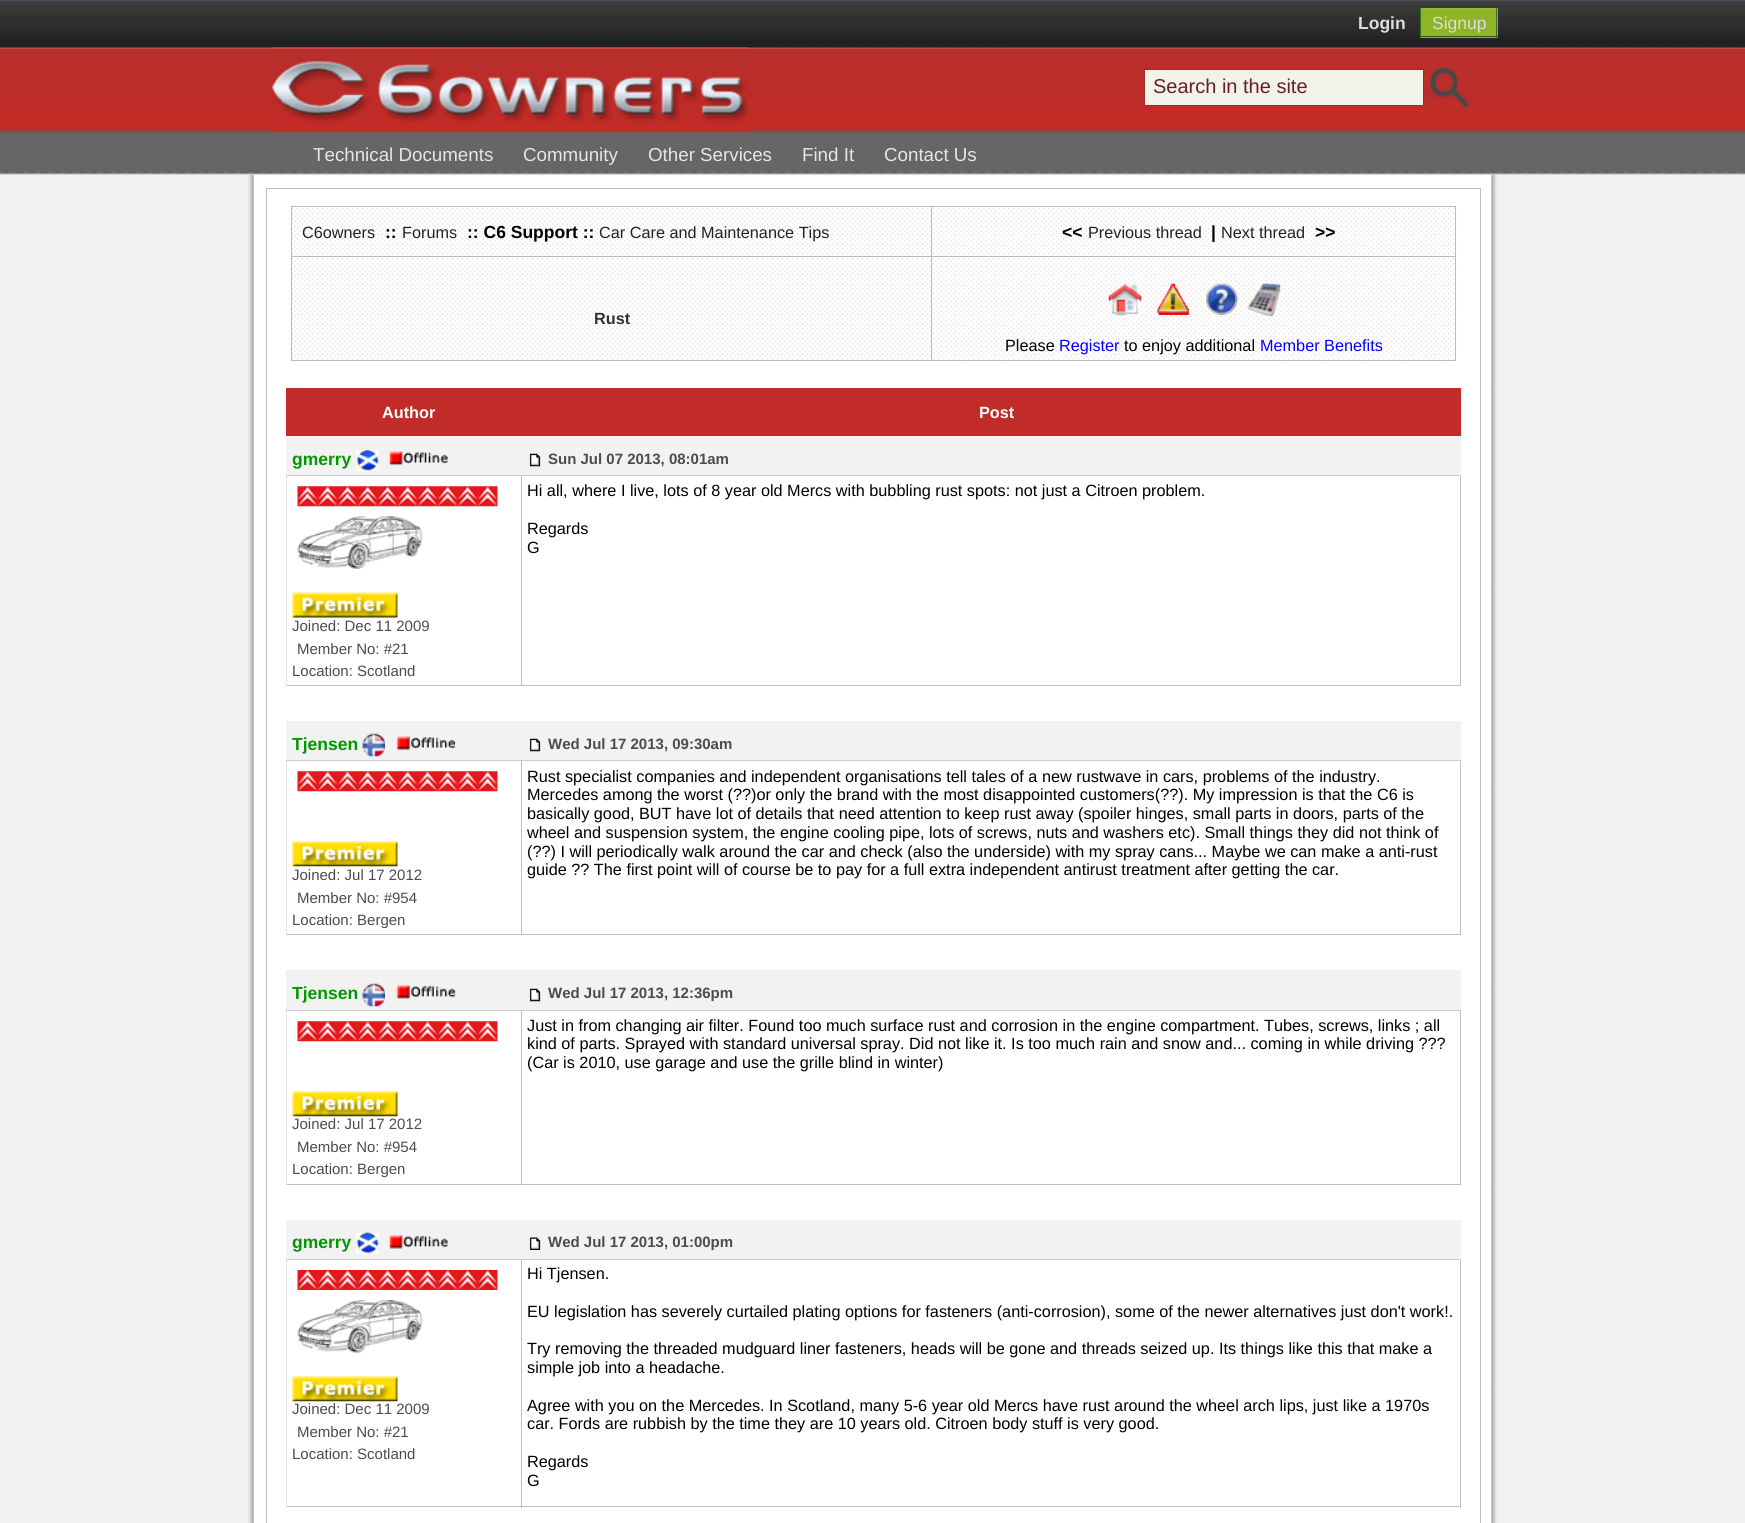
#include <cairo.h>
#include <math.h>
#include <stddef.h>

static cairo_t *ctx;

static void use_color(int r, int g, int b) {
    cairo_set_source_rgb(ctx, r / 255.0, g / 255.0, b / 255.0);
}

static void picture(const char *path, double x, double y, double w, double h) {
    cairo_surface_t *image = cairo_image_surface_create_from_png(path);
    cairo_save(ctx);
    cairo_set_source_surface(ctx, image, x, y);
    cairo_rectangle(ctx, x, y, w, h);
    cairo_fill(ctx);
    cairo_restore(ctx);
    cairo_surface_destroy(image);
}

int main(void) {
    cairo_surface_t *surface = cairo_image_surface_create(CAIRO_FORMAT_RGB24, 1745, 1523);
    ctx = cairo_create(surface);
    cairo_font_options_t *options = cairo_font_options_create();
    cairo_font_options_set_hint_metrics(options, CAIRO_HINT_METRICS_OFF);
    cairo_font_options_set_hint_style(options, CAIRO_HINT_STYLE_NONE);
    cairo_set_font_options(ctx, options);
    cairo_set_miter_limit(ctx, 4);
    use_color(241, 241, 242);
    cairo_paint(ctx);
    picture("img1.png", 0, 0, 1745, 175);
    cairo_select_font_face(ctx, "Liberation Sans", CAIRO_FONT_SLANT_NORMAL, CAIRO_FONT_WEIGHT_BOLD);
    cairo_set_font_size(ctx, 17.5);
    use_color(222, 220, 220);
    cairo_move_to(ctx, 1358, 29);
    cairo_show_text(ctx, "Login");
    use_color(141, 181, 39);
    cairo_rectangle(ctx, 1421, 9, 77, 29);
    cairo_fill(ctx);
    cairo_select_font_face(ctx, "Liberation Sans", CAIRO_FONT_SLANT_NORMAL, CAIRO_FONT_WEIGHT_NORMAL);
    use_color(222, 220, 220);
    cairo_move_to(ctx, 1432, 29);
    cairo_show_text(ctx, "Signup");
    use_color(149, 184, 61);
    cairo_rectangle(ctx, 1420, 8, 78, 1);
    cairo_fill(ctx);
    use_color(59, 110, 34);
    cairo_rectangle(ctx, 1496, 8, 1, 30);
    cairo_fill(ctx);
    use_color(44, 90, 21);
    cairo_rectangle(ctx, 1420, 36, 78, 1);
    cairo_fill(ctx);
    use_color(59, 110, 34);
    cairo_rectangle(ctx, 1420, 8, 1, 30);
    cairo_fill(ctx);
    picture("img2.png", 272, 47, 476, 85);
    use_color(242, 242, 234);
    cairo_rectangle(ctx, 1145, 70, 278, 35);
    cairo_fill(ctx);
    use_color(155, 46, 44);
    cairo_rectangle(ctx, 1144, 69, 280, 1);
    cairo_fill(ctx);
    use_color(170, 39, 36);
    cairo_rectangle(ctx, 1423, 69, 1, 37);
    cairo_fill(ctx);
    cairo_rectangle(ctx, 1144, 105, 280, 1);
    cairo_fill(ctx);
    use_color(155, 46, 44);
    cairo_rectangle(ctx, 1144, 69, 1, 37);
    cairo_fill(ctx);
    cairo_set_font_size(ctx, 20);
    use_color(103, 31, 31);
    cairo_move_to(ctx, 1153, 93);
    cairo_show_text(ctx, "Search in the site");
    picture("img3.png", 1430, 67, 39, 41);
    cairo_set_font_size(ctx, 18.75);
    use_color(232, 229, 229);
    cairo_move_to(ctx, 313, 161);
    cairo_show_text(ctx, "Technical Documents");
    cairo_move_to(ctx, 523, 161);
    cairo_show_text(ctx, "Community");
    cairo_move_to(ctx, 648, 161);
    cairo_show_text(ctx, "Other Services");
    cairo_move_to(ctx, 802, 161);
    cairo_show_text(ctx, "Find It");
    cairo_move_to(ctx, 884, 161);
    cairo_show_text(ctx, "Contact Us");
    picture("img4.png", 248, 175, 1249, 1348);
    cairo_rectangle(ctx, 266.5, 188.5, 1214, 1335);
    use_color(191, 191, 191);
    cairo_set_line_width(ctx, 1);
    cairo_stroke(ctx);
    picture("img5.png", 292, 208, 641, 48);
    use_color(187, 187, 187);
    cairo_rectangle(ctx, 931, 206, 525, 1);
    cairo_fill(ctx);
    cairo_rectangle(ctx, 931, 206, 1, 52);
    cairo_fill(ctx);
    cairo_rectangle(ctx, 291, 206, 642, 1);
    cairo_fill(ctx);
    cairo_rectangle(ctx, 291, 206, 1, 52);
    cairo_fill(ctx);
    cairo_set_font_size(ctx, 16.25);
    use_color(34, 34, 34);
    cairo_move_to(ctx, 302, 238);
    cairo_show_text(ctx, "C6owners");
    cairo_select_font_face(ctx, "Liberation Sans", CAIRO_FONT_SLANT_NORMAL, CAIRO_FONT_WEIGHT_BOLD);
    cairo_set_font_size(ctx, 17.5);
    use_color(0, 0, 0);
    cairo_move_to(ctx, 385, 238);
    cairo_show_text(ctx, "::");
    cairo_select_font_face(ctx, "Liberation Sans", CAIRO_FONT_SLANT_NORMAL, CAIRO_FONT_WEIGHT_NORMAL);
    cairo_set_font_size(ctx, 16.25);
    use_color(34, 34, 34);
    cairo_move_to(ctx, 402, 238);
    cairo_show_text(ctx, "Forums");
    cairo_select_font_face(ctx, "Liberation Sans", CAIRO_FONT_SLANT_NORMAL, CAIRO_FONT_WEIGHT_BOLD);
    cairo_set_font_size(ctx, 17.5);
    use_color(0, 0, 0);
    cairo_move_to(ctx, 467, 238);
    cairo_show_text(ctx, ":: C6 Support ::");
    cairo_select_font_face(ctx, "Liberation Sans", CAIRO_FONT_SLANT_NORMAL, CAIRO_FONT_WEIGHT_NORMAL);
    cairo_set_font_size(ctx, 16.25);
    use_color(34, 34, 34);
    cairo_move_to(ctx, 599, 238);
    cairo_show_text(ctx, "Car Care and Maintenance Tips");
    picture("img6.png", 932, 208, 525, 49);
    use_color(187, 187, 187);
    cairo_rectangle(ctx, 1455, 206, 1, 52);
    cairo_fill(ctx);
    cairo_select_font_face(ctx, "Liberation Sans", CAIRO_FONT_SLANT_NORMAL, CAIRO_FONT_WEIGHT_BOLD);
    cairo_set_font_size(ctx, 17.5);
    use_color(0, 0, 0);
    cairo_move_to(ctx, 1062, 238);
    cairo_show_text(ctx, "<<");
    cairo_select_font_face(ctx, "Liberation Sans", CAIRO_FONT_SLANT_NORMAL, CAIRO_FONT_WEIGHT_NORMAL);
    cairo_set_font_size(ctx, 16.25);
    use_color(34, 34, 34);
    cairo_move_to(ctx, 1088, 238);
    cairo_show_text(ctx, "Previous thread");
    cairo_select_font_face(ctx, "Liberation Sans", CAIRO_FONT_SLANT_NORMAL, CAIRO_FONT_WEIGHT_BOLD);
    cairo_set_font_size(ctx, 17.5);
    use_color(0, 0, 0);
    cairo_move_to(ctx, 1211, 238);
    cairo_show_text(ctx, "|");
    cairo_select_font_face(ctx, "Liberation Sans", CAIRO_FONT_SLANT_NORMAL, CAIRO_FONT_WEIGHT_NORMAL);
    cairo_set_font_size(ctx, 16.25);
    use_color(34, 34, 34);
    cairo_move_to(ctx, 1221, 238);
    cairo_show_text(ctx, "Next thread");
    cairo_select_font_face(ctx, "Liberation Sans", CAIRO_FONT_SLANT_NORMAL, CAIRO_FONT_WEIGHT_BOLD);
    cairo_set_font_size(ctx, 17.5);
    use_color(0, 0, 0);
    cairo_move_to(ctx, 1315, 238);
    cairo_show_text(ctx, ">>");
    picture("img7.png", 291, 257, 642, 105);
    use_color(187, 187, 187);
    cairo_rectangle(ctx, 931, 256, 525, 1);
    cairo_fill(ctx);
    picture("img8.png", 932, 257, 525, 105);
    cairo_rectangle(ctx, 1455, 256, 1, 105);
    cairo_fill(ctx);
    cairo_rectangle(ctx, 931, 360, 525, 1);
    cairo_fill(ctx);
    cairo_rectangle(ctx, 931, 256, 1, 105);
    cairo_fill(ctx);
    cairo_rectangle(ctx, 291, 256, 642, 1);
    cairo_fill(ctx);
    cairo_rectangle(ctx, 291, 360, 642, 1);
    cairo_fill(ctx);
    cairo_rectangle(ctx, 291, 256, 1, 105);
    cairo_fill(ctx);
    cairo_set_font_size(ctx, 16.25);
    use_color(51, 51, 51);
    cairo_move_to(ctx, 594, 324);
    cairo_show_text(ctx, "Rust");
    picture("img9.png", 1108, 283, 34, 33);
    picture("img10.png", 1157, 283, 32, 32);
    picture("img11.png", 1206, 283, 32, 32);
    picture("img12.png", 1246, 282, 36, 35);
    cairo_select_font_face(ctx, "Liberation Sans", CAIRO_FONT_SLANT_NORMAL, CAIRO_FONT_WEIGHT_NORMAL);
    use_color(0, 0, 0);
    cairo_move_to(ctx, 1005, 351);
    cairo_show_text(ctx, "Please");
    use_color(0, 0, 255);
    cairo_move_to(ctx, 1059, 351);
    cairo_show_text(ctx, "Register");
    use_color(0, 0, 0);
    cairo_move_to(ctx, 1124, 351);
    cairo_show_text(ctx, "to enjoy additional");
    use_color(0, 0, 255);
    cairo_move_to(ctx, 1260, 351);
    cairo_show_text(ctx, "Member Benefits");
    use_color(193, 44, 40);
    cairo_rectangle(ctx, 286, 388, 1175, 48);
    cairo_fill(ctx);
    cairo_select_font_face(ctx, "Liberation Sans", CAIRO_FONT_SLANT_NORMAL, CAIRO_FONT_WEIGHT_BOLD);
    use_color(255, 255, 255);
    cairo_move_to(ctx, 382, 418);
    cairo_show_text(ctx, "Author");
    cairo_move_to(ctx, 979, 418);
    cairo_show_text(ctx, "Post");
    use_color(242, 242, 242);
    cairo_rectangle(ctx, 286, 436, 1175, 39);
    cairo_fill(ctx);
    cairo_set_font_size(ctx, 17.5);
    use_color(0, 153, 0);
    cairo_move_to(ctx, 292, 465);
    cairo_show_text(ctx, "gmerry");
    picture("img13.png", 356, 450, 23, 21);
    picture("img14.png", 388, 451, 60, 15);
    use_color(191, 191, 191);
    cairo_rectangle(ctx, 1460, 475, 1, 211);
    cairo_fill(ctx);
    cairo_rectangle(ctx, 521, 685, 940, 1);
    cairo_fill(ctx);
    cairo_rectangle(ctx, 521, 475, 1, 211);
    cairo_fill(ctx);
    cairo_rectangle(ctx, 286, 685, 237, 1);
    cairo_fill(ctx);
    use_color(229, 229, 229);
    cairo_rectangle(ctx, 286, 475, 1, 211);
    cairo_fill(ctx);
    use_color(204, 204, 204);
    cairo_rectangle(ctx, 286, 475, 1175, 1);
    cairo_fill(ctx);
    picture("img15.png", 529, 453, 12, 14);
    cairo_set_font_size(ctx, 15);
    use_color(76, 76, 75);
    cairo_move_to(ctx, 548, 464);
    cairo_show_text(ctx, "Sun Jul 07 2013, 08:01am");
    cairo_select_font_face(ctx, "Liberation Sans", CAIRO_FONT_SLANT_NORMAL, CAIRO_FONT_WEIGHT_NORMAL);
    cairo_set_font_size(ctx, 16.25);
    use_color(0, 0, 0);
    cairo_move_to(ctx, 527, 496);
    cairo_show_text(ctx, "Hi all, where I live, lots of 8 year old Mercs with bubbling rust spots: not just a Citroen problem.");
    cairo_move_to(ctx, 527, 534);
    cairo_show_text(ctx, "Regards");
    cairo_move_to(ctx, 527, 553);
    cairo_show_text(ctx, "G");
    picture("img16.png", 297, 486, 201, 21);
    picture("img17.png", 297, 516, 126, 53);
    picture("img18.png", 292, 592, 106, 26);
    cairo_set_font_size(ctx, 15);
    use_color(76, 76, 75);
    cairo_move_to(ctx, 292, 631);
    cairo_show_text(ctx, "Joined: Dec 11 2009");
    cairo_move_to(ctx, 297, 654);
    cairo_show_text(ctx, "Member No: #21");
    cairo_move_to(ctx, 292, 676);
    cairo_show_text(ctx, "Location: Scotland");
    use_color(242, 242, 242);
    cairo_rectangle(ctx, 286, 721, 1175, 39);
    cairo_fill(ctx);
    cairo_select_font_face(ctx, "Liberation Sans", CAIRO_FONT_SLANT_NORMAL, CAIRO_FONT_WEIGHT_BOLD);
    cairo_set_font_size(ctx, 17.5);
    use_color(0, 153, 0);
    cairo_move_to(ctx, 292, 750);
    cairo_show_text(ctx, "Tjensen");
    picture("img19.png", 362, 733, 23, 24);
    picture("img20.png", 396, 736, 60, 15);
    use_color(191, 191, 191);
    cairo_rectangle(ctx, 1460, 760, 1, 175);
    cairo_fill(ctx);
    cairo_rectangle(ctx, 521, 934, 940, 1);
    cairo_fill(ctx);
    cairo_rectangle(ctx, 521, 760, 1, 175);
    cairo_fill(ctx);
    cairo_rectangle(ctx, 286, 934, 237, 1);
    cairo_fill(ctx);
    use_color(229, 229, 229);
    cairo_rectangle(ctx, 286, 760, 1, 175);
    cairo_fill(ctx);
    use_color(204, 204, 204);
    cairo_rectangle(ctx, 286, 760, 1175, 1);
    cairo_fill(ctx);
    picture("img15.png", 529, 738, 12, 14);
    cairo_set_font_size(ctx, 15);
    use_color(76, 76, 75);
    cairo_move_to(ctx, 548, 749);
    cairo_show_text(ctx, "Wed Jul 17 2013, 09:30am");
    cairo_select_font_face(ctx, "Liberation Sans", CAIRO_FONT_SLANT_NORMAL, CAIRO_FONT_WEIGHT_NORMAL);
    cairo_set_font_size(ctx, 16.25);
    use_color(0, 0, 0);
    cairo_move_to(ctx, 527, 782);
    cairo_show_text(ctx, "Rust specialist companies and independent organisations tell tales of a new rustwave in cars, problems of the industry.");
    cairo_move_to(ctx, 527, 800);
    cairo_show_text(ctx, "Mercedes among the worst (?\077)or only the brand with the most disappointed customers(?\077). My impression is that the C6 is");
    cairo_move_to(ctx, 527, 819);
    cairo_show_text(ctx, "basically good, BUT have lot of details that need attention to keep rust away (spoiler hinges, small parts in doors, parts of the");
    cairo_move_to(ctx, 527, 838);
    cairo_show_text(ctx, "wheel and suspension system, the engine cooling pipe, lots of screws, nuts and washers etc). Small things they did not think of");
    cairo_move_to(ctx, 527, 857);
    cairo_show_text(ctx, "(?\077) I will periodically walk around the car and check (also the underside) with my spray cans... Maybe we can make a anti-rust");
    cairo_move_to(ctx, 527, 875);
    cairo_show_text(ctx, "guide ?\077 The first point will of course be to pay for a full extra independent antirust treatment after getting the car.");
    picture("img16.png", 297, 771, 201, 21);
    picture("img21.png", 292, 841, 106, 26);
    cairo_set_font_size(ctx, 15);
    use_color(76, 76, 75);
    cairo_move_to(ctx, 292, 880);
    cairo_show_text(ctx, "Joined: Jul 17 2012");
    cairo_move_to(ctx, 297, 903);
    cairo_show_text(ctx, "Member No: #954");
    cairo_move_to(ctx, 292, 925);
    cairo_show_text(ctx, "Location: Bergen");
    use_color(242, 242, 242);
    cairo_rectangle(ctx, 286, 970, 1175, 40);
    cairo_fill(ctx);
    cairo_select_font_face(ctx, "Liberation Sans", CAIRO_FONT_SLANT_NORMAL, CAIRO_FONT_WEIGHT_BOLD);
    cairo_set_font_size(ctx, 17.5);
    use_color(0, 153, 0);
    cairo_move_to(ctx, 292, 999);
    cairo_show_text(ctx, "Tjensen");
    picture("img19.png", 362, 983, 23, 24);
    picture("img22.png", 396, 984, 60, 15);
    use_color(191, 191, 191);
    cairo_rectangle(ctx, 1460, 1010, 1, 175);
    cairo_fill(ctx);
    cairo_rectangle(ctx, 521, 1184, 940, 1);
    cairo_fill(ctx);
    cairo_rectangle(ctx, 521, 1010, 1, 175);
    cairo_fill(ctx);
    cairo_rectangle(ctx, 286, 1184, 237, 1);
    cairo_fill(ctx);
    use_color(229, 229, 229);
    cairo_rectangle(ctx, 286, 1010, 1, 175);
    cairo_fill(ctx);
    use_color(204, 204, 204);
    cairo_rectangle(ctx, 286, 1010, 1175, 1);
    cairo_fill(ctx);
    picture("img15.png", 529, 988, 12, 14);
    cairo_set_font_size(ctx, 15);
    use_color(76, 76, 75);
    cairo_move_to(ctx, 548, 998);
    cairo_show_text(ctx, "Wed Jul 17 2013, 12:36pm");
    cairo_select_font_face(ctx, "Liberation Sans", CAIRO_FONT_SLANT_NORMAL, CAIRO_FONT_WEIGHT_NORMAL);
    cairo_set_font_size(ctx, 16.25);
    use_color(0, 0, 0);
    cairo_move_to(ctx, 527, 1031);
    cairo_show_text(ctx, "Just in from changing air filter. Found too much surface rust and corrosion in the engine compartment. Tubes, screws, links ; all");
    cairo_move_to(ctx, 527, 1049);
    cairo_show_text(ctx, "kind of parts. Sprayed with standard universal spray. Did not like it. Is too much rain and snow and... coming in while driving ?\077?");
    cairo_move_to(ctx, 527, 1068);
    cairo_show_text(ctx, "(Car is 2010, use garage and use the grille blind in winter)");
    picture("img23.png", 297, 1021, 201, 21);
    picture("img21.png", 292, 1091, 106, 26);
    cairo_set_font_size(ctx, 15);
    use_color(76, 76, 75);
    cairo_move_to(ctx, 292, 1129);
    cairo_show_text(ctx, "Joined: Jul 17 2012");
    cairo_move_to(ctx, 297, 1152);
    cairo_show_text(ctx, "Member No: #954");
    cairo_move_to(ctx, 292, 1174);
    cairo_show_text(ctx, "Location: Bergen");
    use_color(242, 242, 242);
    cairo_rectangle(ctx, 286, 1220, 1175, 39);
    cairo_fill(ctx);
    cairo_select_font_face(ctx, "Liberation Sans", CAIRO_FONT_SLANT_NORMAL, CAIRO_FONT_WEIGHT_BOLD);
    cairo_set_font_size(ctx, 17.5);
    use_color(0, 153, 0);
    cairo_move_to(ctx, 292, 1248);
    cairo_show_text(ctx, "gmerry");
    picture("img24.png", 356, 1232, 23, 22);
    picture("img25.png", 388, 1234, 60, 15);
    use_color(191, 191, 191);
    cairo_rectangle(ctx, 1460, 1259, 1, 249);
    cairo_fill(ctx);
    cairo_rectangle(ctx, 521, 1506, 940, 1);
    cairo_fill(ctx);
    cairo_rectangle(ctx, 521, 1259, 1, 249);
    cairo_fill(ctx);
    cairo_rectangle(ctx, 286, 1506, 237, 1);
    cairo_fill(ctx);
    use_color(229, 229, 229);
    cairo_rectangle(ctx, 286, 1259, 1, 249);
    cairo_fill(ctx);
    use_color(204, 204, 204);
    cairo_rectangle(ctx, 286, 1259, 1175, 1);
    cairo_fill(ctx);
    picture("img26.png", 529, 1237, 12, 13);
    cairo_set_font_size(ctx, 15);
    use_color(76, 76, 75);
    cairo_move_to(ctx, 548, 1247);
    cairo_show_text(ctx, "Wed Jul 17 2013, 01:00pm");
    picture("img27.png", 297, 1270, 201, 20);
    picture("img28.png", 297, 1300, 126, 53);
    picture("img21.png", 292, 1376, 106, 26);
    cairo_select_font_face(ctx, "Liberation Sans", CAIRO_FONT_SLANT_NORMAL, CAIRO_FONT_WEIGHT_NORMAL);
    cairo_move_to(ctx, 292, 1414);
    cairo_show_text(ctx, "Joined: Dec 11 2009");
    cairo_move_to(ctx, 297, 1437);
    cairo_show_text(ctx, "Member No: #21");
    cairo_move_to(ctx, 292, 1459);
    cairo_show_text(ctx, "Location: Scotland");
    cairo_set_font_size(ctx, 16.25);
    use_color(0, 0, 0);
    cairo_move_to(ctx, 527, 1279);
    cairo_show_text(ctx, "Hi Tjensen.");
    cairo_move_to(ctx, 527, 1317);
    cairo_show_text(ctx, "EU legislation has severely curtailed plating options for fasteners (anti-corrosion), some of the newer alternatives just don't work!.");
    cairo_move_to(ctx, 527, 1354);
    cairo_show_text(ctx, "Try removing the threaded mudguard liner fasteners, heads will be gone and threads seized up. Its things like this that make a");
    cairo_move_to(ctx, 527, 1373);
    cairo_show_text(ctx, "simple job into a headache.");
    cairo_move_to(ctx, 527, 1411);
    cairo_show_text(ctx, "Agree with you on the Mercedes. In Scotland, many 5-6 year old Mercs have rust around the wheel arch lips, just like a 1970s");
    cairo_move_to(ctx, 527, 1429);
    cairo_show_text(ctx, "car. Fords are rubbish by the time they are 10 years old. Citroen body stuff is very good.");
    cairo_move_to(ctx, 527, 1467);
    cairo_show_text(ctx, "Regards");
    cairo_move_to(ctx, 527, 1486);
    cairo_show_text(ctx, "G");
    cairo_surface_write_to_png(surface, "result.png");
    cairo_font_options_destroy(options);
    cairo_destroy(ctx);
    cairo_surface_destroy(surface);
    return 0;
}
